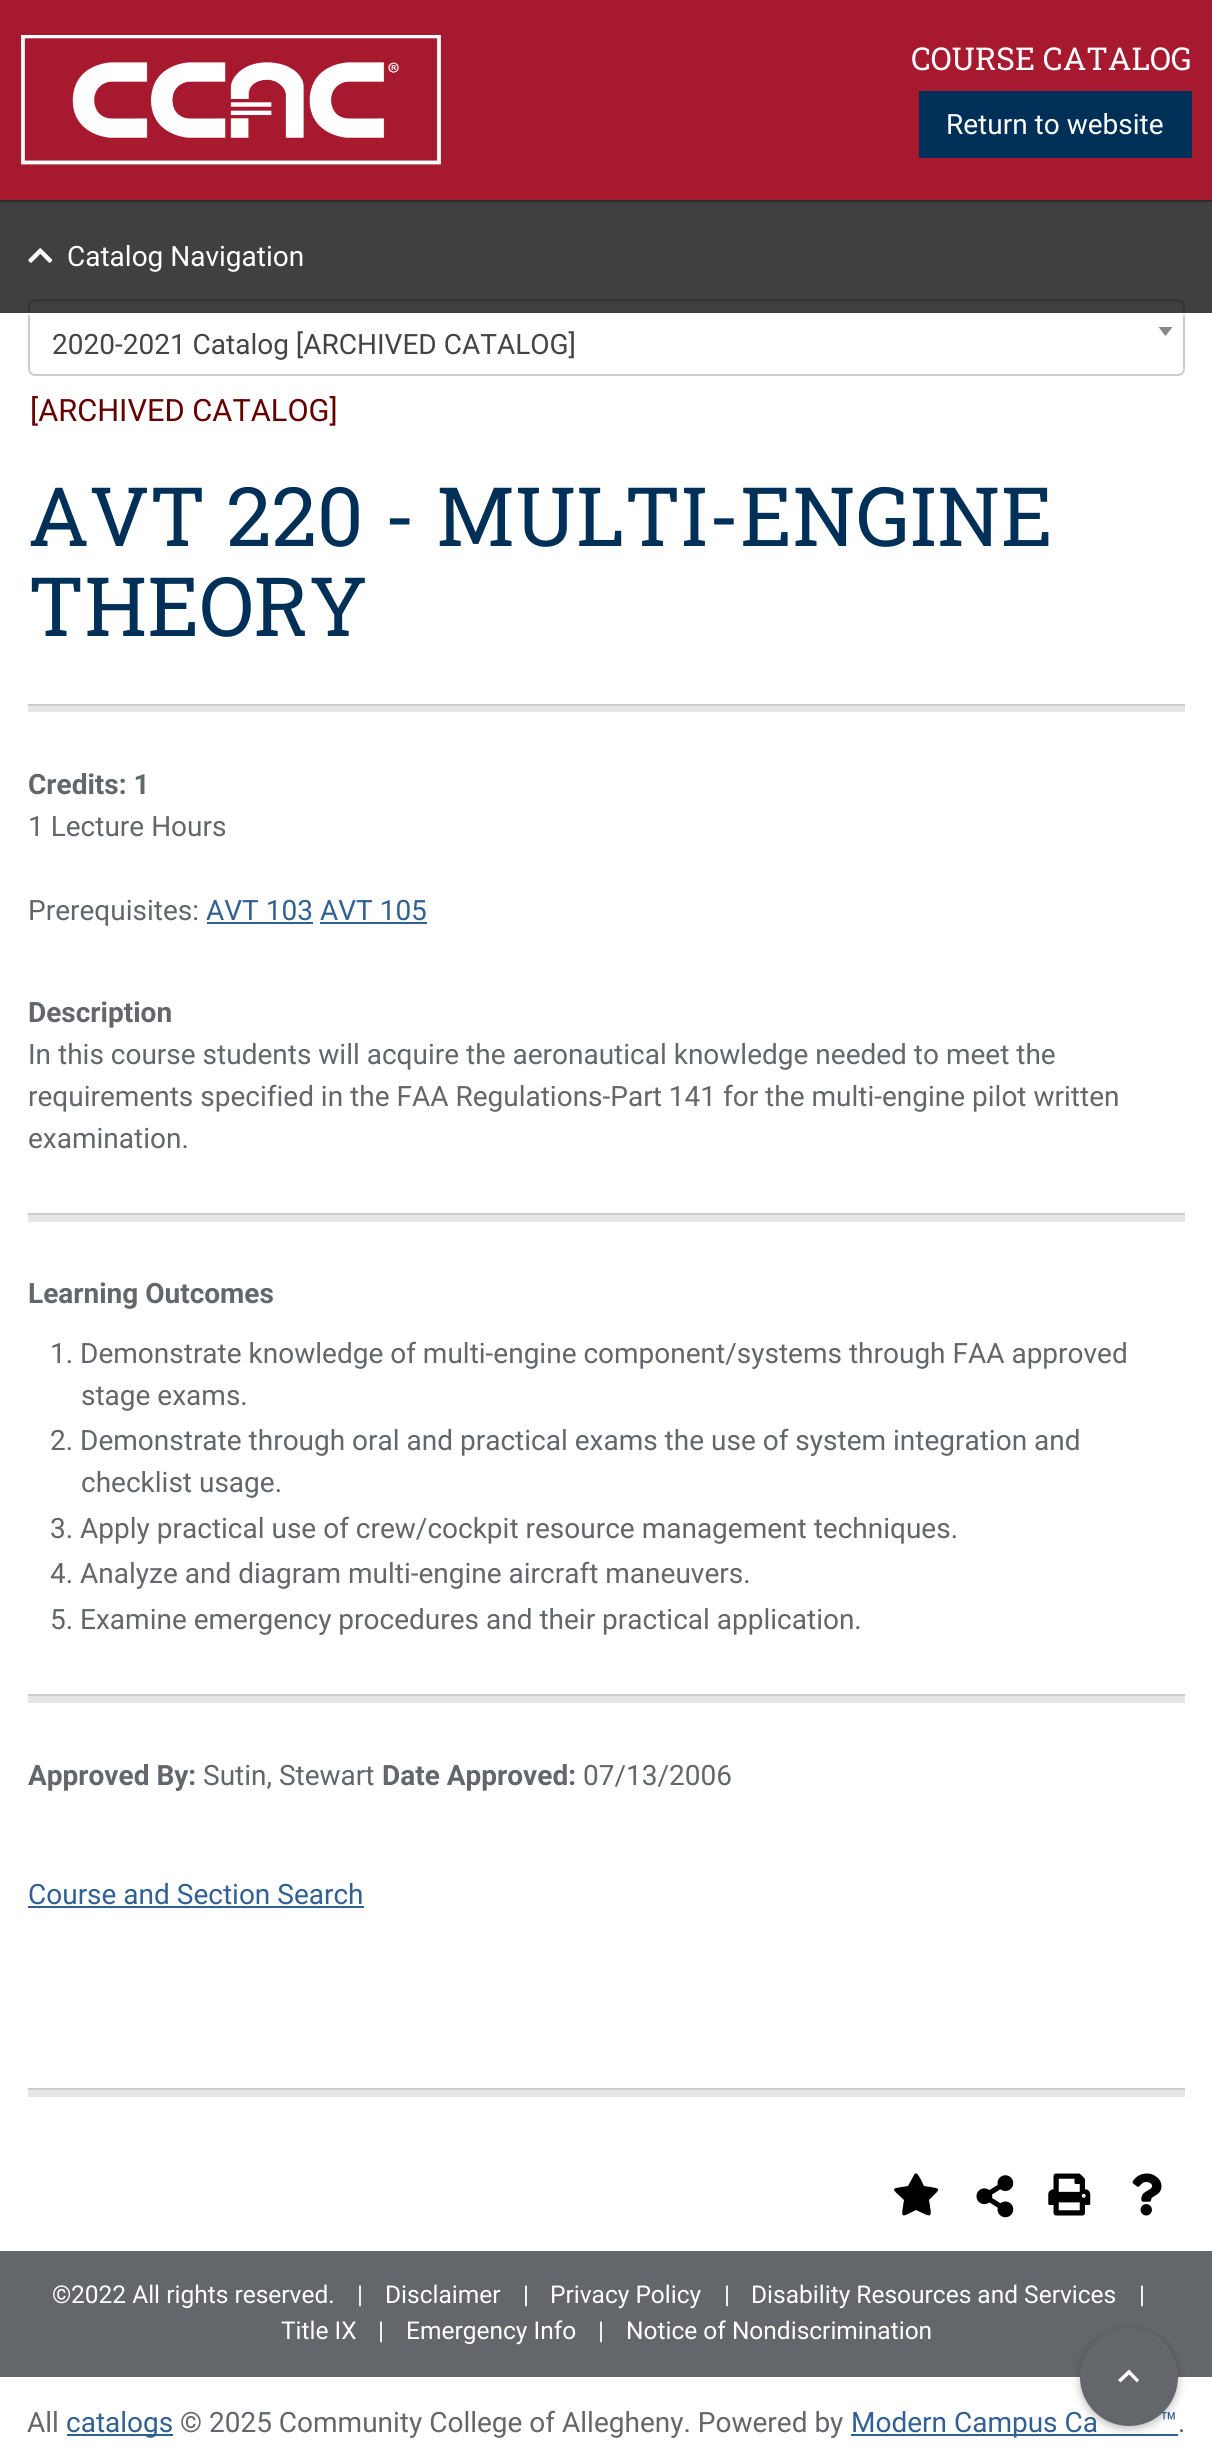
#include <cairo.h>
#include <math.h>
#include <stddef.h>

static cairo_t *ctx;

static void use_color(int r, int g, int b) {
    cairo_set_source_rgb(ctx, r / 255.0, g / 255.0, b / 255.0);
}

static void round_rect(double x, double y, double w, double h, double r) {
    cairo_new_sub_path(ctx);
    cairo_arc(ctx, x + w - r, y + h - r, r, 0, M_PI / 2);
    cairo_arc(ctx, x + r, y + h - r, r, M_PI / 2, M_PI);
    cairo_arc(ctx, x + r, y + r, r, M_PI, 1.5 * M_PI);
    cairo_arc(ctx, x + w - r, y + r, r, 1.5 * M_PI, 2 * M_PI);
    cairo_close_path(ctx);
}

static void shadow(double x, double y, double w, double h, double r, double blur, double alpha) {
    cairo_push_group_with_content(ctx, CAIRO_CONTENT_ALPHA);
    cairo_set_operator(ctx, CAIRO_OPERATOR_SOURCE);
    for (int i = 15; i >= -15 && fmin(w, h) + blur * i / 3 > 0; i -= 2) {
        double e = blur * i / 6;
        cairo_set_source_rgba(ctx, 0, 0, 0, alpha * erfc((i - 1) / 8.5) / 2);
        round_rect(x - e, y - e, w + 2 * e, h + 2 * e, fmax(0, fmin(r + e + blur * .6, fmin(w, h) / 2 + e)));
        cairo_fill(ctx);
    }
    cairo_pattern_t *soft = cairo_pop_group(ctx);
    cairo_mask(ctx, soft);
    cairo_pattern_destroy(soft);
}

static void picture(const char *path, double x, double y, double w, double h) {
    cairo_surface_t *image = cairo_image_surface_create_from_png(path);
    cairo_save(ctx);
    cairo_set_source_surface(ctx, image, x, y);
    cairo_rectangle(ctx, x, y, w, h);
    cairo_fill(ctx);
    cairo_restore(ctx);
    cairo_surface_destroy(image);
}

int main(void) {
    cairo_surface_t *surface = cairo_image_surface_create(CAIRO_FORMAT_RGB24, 1212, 2460);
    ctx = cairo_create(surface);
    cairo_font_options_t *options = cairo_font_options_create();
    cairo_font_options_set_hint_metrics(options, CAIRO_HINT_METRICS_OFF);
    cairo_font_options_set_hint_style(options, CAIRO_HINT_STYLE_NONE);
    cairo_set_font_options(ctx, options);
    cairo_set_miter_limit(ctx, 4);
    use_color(255, 255, 255);
    cairo_paint(ctx);
    use_color(179, 179, 179);
    cairo_rectangle(ctx, 0, 200, 1212, 2);
    cairo_fill(ctx);
    use_color(166, 25, 46);
    cairo_rectangle(ctx, 0, 0, 1212, 200);
    cairo_fill(ctx);
    picture("img1.png", 21, 35, 420, 130);
    cairo_select_font_face(ctx, "Roboto Slab", CAIRO_FONT_SLANT_NORMAL, CAIRO_FONT_WEIGHT_NORMAL);
    cairo_set_font_size(ctx, 31.5);
    use_color(255, 255, 255);
    cairo_move_to(ctx, 911, 70);
    cairo_show_text(ctx, "COURSE CATALOG");
    use_color(0, 48, 87);
    cairo_rectangle(ctx, 919, 91, 273, 67);
    cairo_fill(ctx);
    cairo_select_font_face(ctx, "Roboto", CAIRO_FONT_SLANT_NORMAL, CAIRO_FONT_WEIGHT_NORMAL);
    cairo_set_font_size(ctx, 28);
    use_color(255, 255, 255);
    cairo_move_to(ctx, 946, 134);
    cairo_show_text(ctx, "Return to website");
    use_color(236, 236, 236);
    cairo_new_path(ctx);
    cairo_move_to(ctx, 35, 303);
    cairo_line_to(ctx, 1178, 303);
    cairo_curve_to(ctx, 1181, 303, 1183, 305, 1183, 308);
    cairo_line_to(ctx, 1183, 306);
    cairo_curve_to(ctx, 1183, 303, 1181, 301, 1178, 301);
    cairo_line_to(ctx, 35, 301);
    cairo_curve_to(ctx, 32, 301, 30, 303, 30, 306);
    cairo_line_to(ctx, 30, 308);
    cairo_curve_to(ctx, 30, 305, 32, 303, 35, 303);
    cairo_close_path(ctx);
    cairo_fill(ctx);
    round_rect(29, 300, 1155, 75, 6);
    use_color(204, 204, 204);
    cairo_stroke(ctx);
    cairo_set_source_rgba(ctx, 0, 0, 0, 0.75);
    cairo_rectangle(ctx, 0, 200, 1212, 113);
    cairo_fill(ctx);
    use_color(255, 255, 255);
    cairo_rectangle(ctx, 28, 313, 1157, 2);
    cairo_fill(ctx);
    picture("img2.png", 28, 248, 25, 15);
    cairo_move_to(ctx, 67, 266);
    cairo_show_text(ctx, "Catalog Navigation");
    use_color(68, 68, 68);
    cairo_move_to(ctx, 52, 354);
    cairo_show_text(ctx, "2020-2021 Catalog [ARCHIVED CATALOG]");
    use_color(136, 136, 136);
    cairo_new_path(ctx);
    cairo_move_to(ctx, 1158.5, 327);
    cairo_line_to(ctx, 1172.5, 327);
    cairo_line_to(ctx, 1165.5, 336);
    cairo_close_path(ctx);
    cairo_fill(ctx);
    cairo_set_font_size(ctx, 30.75);
    use_color(102, 0, 0);
    cairo_move_to(ctx, 30, 421);
    cairo_show_text(ctx, "[ARCHIVED CATALOG]");
    cairo_select_font_face(ctx, "Roboto Slab", CAIRO_FONT_SLANT_NORMAL, CAIRO_FONT_WEIGHT_NORMAL);
    cairo_set_font_size(ctx, 81.9);
    use_color(0, 48, 87);
    cairo_move_to(ctx, 28, 546);
    cairo_show_text(ctx, "AVT 220 - MULTI-ENGINE");
    cairo_move_to(ctx, 28, 636);
    cairo_show_text(ctx, "THEORY");
    use_color(230, 230, 230);
    cairo_rectangle(ctx, 28, 706, 1157, 6);
    cairo_fill(ctx);
    use_color(204, 204, 204);
    cairo_rectangle(ctx, 28, 704, 1157, 2);
    cairo_fill(ctx);
    cairo_select_font_face(ctx, "Roboto", CAIRO_FONT_SLANT_NORMAL, CAIRO_FONT_WEIGHT_BOLD);
    cairo_set_font_size(ctx, 28);
    use_color(99, 102, 106);
    cairo_move_to(ctx, 28, 794);
    cairo_show_text(ctx, "Credits: 1");
    cairo_select_font_face(ctx, "Roboto", CAIRO_FONT_SLANT_NORMAL, CAIRO_FONT_WEIGHT_NORMAL);
    cairo_move_to(ctx, 28, 836);
    cairo_show_text(ctx, "1 Lecture Hours");
    cairo_move_to(ctx, 28, 920);
    cairo_show_text(ctx, "Prerequisites:");
    use_color(49, 96, 148);
    cairo_move_to(ctx, 206, 920);
    cairo_show_text(ctx, "AVT 103 AVT 105");
    cairo_rectangle(ctx, 207, 922, 106, 2);
    cairo_fill(ctx);
    cairo_rectangle(ctx, 320, 922, 107, 2);
    cairo_fill(ctx);
    cairo_select_font_face(ctx, "Roboto", CAIRO_FONT_SLANT_NORMAL, CAIRO_FONT_WEIGHT_BOLD);
    use_color(99, 102, 106);
    cairo_move_to(ctx, 28, 1022);
    cairo_show_text(ctx, "Description");
    cairo_select_font_face(ctx, "Roboto", CAIRO_FONT_SLANT_NORMAL, CAIRO_FONT_WEIGHT_NORMAL);
    cairo_move_to(ctx, 28, 1064);
    cairo_show_text(ctx, "In this course students will acquire the aeronautical knowledge needed to meet the");
    cairo_move_to(ctx, 28, 1106);
    cairo_show_text(ctx, "requirements specified in the FAA Regulations-Part 141 for the multi-engine pilot written");
    cairo_move_to(ctx, 28, 1148);
    cairo_show_text(ctx, "examination.");
    use_color(230, 230, 230);
    cairo_rectangle(ctx, 28, 1215, 1157, 7);
    cairo_fill(ctx);
    use_color(204, 204, 204);
    cairo_rectangle(ctx, 28, 1213, 1157, 2);
    cairo_fill(ctx);
    cairo_select_font_face(ctx, "Roboto", CAIRO_FONT_SLANT_NORMAL, CAIRO_FONT_WEIGHT_BOLD);
    use_color(99, 102, 106);
    cairo_move_to(ctx, 28, 1303);
    cairo_show_text(ctx, "Learning Outcomes");
    cairo_select_font_face(ctx, "Roboto", CAIRO_FONT_SLANT_NORMAL, CAIRO_FONT_WEIGHT_NORMAL);
    cairo_move_to(ctx, 50, 1363);
    cairo_show_text(ctx, "1. Demonstrate knowledge of multi-engine component/systems through FAA approved");
    cairo_move_to(ctx, 81, 1405);
    cairo_show_text(ctx, "stage exams.");
    cairo_move_to(ctx, 50, 1450);
    cairo_show_text(ctx, "2. Demonstrate through oral and practical exams the use of system integration and");
    cairo_move_to(ctx, 81, 1492);
    cairo_show_text(ctx, "checklist usage.");
    cairo_move_to(ctx, 50, 1538);
    cairo_show_text(ctx, "3. Apply practical use of crew/cockpit resource management techniques.");
    cairo_move_to(ctx, 50, 1583);
    cairo_show_text(ctx, "4. Analyze and diagram multi-engine aircraft maneuvers.");
    cairo_move_to(ctx, 50, 1629);
    cairo_show_text(ctx, "5. Examine emergency procedures and their practical application.");
    use_color(230, 230, 230);
    cairo_rectangle(ctx, 28, 1696, 1157, 7);
    cairo_fill(ctx);
    use_color(204, 204, 204);
    cairo_rectangle(ctx, 28, 1694, 1157, 2);
    cairo_fill(ctx);
    cairo_select_font_face(ctx, "Roboto", CAIRO_FONT_SLANT_NORMAL, CAIRO_FONT_WEIGHT_BOLD);
    use_color(99, 102, 106);
    cairo_move_to(ctx, 28, 1785);
    cairo_show_text(ctx, "Approved By:");
    cairo_select_font_face(ctx, "Roboto", CAIRO_FONT_SLANT_NORMAL, CAIRO_FONT_WEIGHT_NORMAL);
    cairo_move_to(ctx, 203, 1785);
    cairo_show_text(ctx, "Sutin, Stewart");
    cairo_select_font_face(ctx, "Roboto", CAIRO_FONT_SLANT_NORMAL, CAIRO_FONT_WEIGHT_BOLD);
    cairo_move_to(ctx, 382, 1785);
    cairo_show_text(ctx, "Date Approved:");
    cairo_select_font_face(ctx, "Roboto", CAIRO_FONT_SLANT_NORMAL, CAIRO_FONT_WEIGHT_NORMAL);
    cairo_move_to(ctx, 583, 1785);
    cairo_show_text(ctx, "07/13/2006");
    use_color(49, 96, 148);
    cairo_move_to(ctx, 28, 1904);
    cairo_show_text(ctx, "Course and Section Search");
    cairo_rectangle(ctx, 28, 1906, 336, 2);
    cairo_fill(ctx);
    use_color(230, 230, 230);
    cairo_rectangle(ctx, 28, 2090, 1157, 7);
    cairo_fill(ctx);
    use_color(204, 204, 204);
    cairo_rectangle(ctx, 28, 2088, 1157, 2);
    cairo_fill(ctx);
    use_color(0, 0, 0);
    cairo_new_path(ctx);
    cairo_move_to(ctx, 914, 2175);
    cairo_curve_to(ctx, 917, 2168, 923, 2185, 924, 2186);
    cairo_curve_to(ctx, 942, 2189, 942, 2187, 929, 2200);
    cairo_curve_to(ctx, 932, 2219, 933, 2218, 916, 2210);
    cairo_curve_to(ctx, 900, 2218, 901, 2219, 904, 2200);
    cairo_curve_to(ctx, 890, 2187, 890, 2189, 908, 2186);
    cairo_close_path(ctx);
    cairo_fill(ctx);
    picture("img3.png", 976, 2175, 38, 43);
    picture("img4.png", 1048, 2173, 43, 43);
    picture("img5.png", 1132, 2173, 30, 43);
    use_color(99, 102, 106);
    cairo_rectangle(ctx, 0, 2251, 1212, 126);
    cairo_fill(ctx);
    cairo_set_font_size(ctx, 24.5);
    use_color(255, 255, 255);
    cairo_move_to(ctx, 52, 2303);
    cairo_show_text(ctx, "©");
    cairo_move_to(ctx, 71, 2303);
    cairo_show_text(ctx, "2022 All rights reserved.");
    cairo_move_to(ctx, 357, 2303);
    cairo_show_text(ctx, "|");
    cairo_move_to(ctx, 385, 2303);
    cairo_show_text(ctx, "Disclaimer");
    cairo_move_to(ctx, 523, 2303);
    cairo_show_text(ctx, "|");
    cairo_move_to(ctx, 550, 2303);
    cairo_show_text(ctx, "Privacy Policy");
    cairo_move_to(ctx, 724, 2303);
    cairo_show_text(ctx, "|");
    cairo_move_to(ctx, 751, 2303);
    cairo_show_text(ctx, "Disability Resources and Services");
    cairo_move_to(ctx, 1139, 2303);
    cairo_show_text(ctx, "|");
    cairo_move_to(ctx, 281, 2339);
    cairo_show_text(ctx, "Title IX");
    cairo_move_to(ctx, 378, 2339);
    cairo_show_text(ctx, "|");
    cairo_move_to(ctx, 406, 2339);
    cairo_show_text(ctx, "Emergency Info");
    cairo_move_to(ctx, 598, 2339);
    cairo_show_text(ctx, "|");
    cairo_move_to(ctx, 626, 2339);
    cairo_show_text(ctx, "Notice of Nondiscrimination");
    cairo_set_font_size(ctx, 28);
    use_color(99, 102, 106);
    cairo_move_to(ctx, 27, 2432);
    cairo_show_text(ctx, "All");
    use_color(49, 96, 148);
    cairo_rectangle(ctx, 67, 2434, 106, 2);
    cairo_fill(ctx);
    cairo_move_to(ctx, 66, 2432);
    cairo_show_text(ctx, "catalogs");
    use_color(99, 102, 106);
    cairo_move_to(ctx, 180, 2432);
    cairo_show_text(ctx, "© 2025 Community College of Allegheny. Powered by");
    use_color(49, 96, 148);
    cairo_rectangle(ctx, 851, 2434, 327, 2);
    cairo_fill(ctx);
    cairo_move_to(ctx, 851, 2432);
    cairo_show_text(ctx, "Modern Campus Ca");
    cairo_move_to(ctx, 1160, 2432);
    cairo_show_text(ctx, "™");
    use_color(99, 102, 106);
    cairo_move_to(ctx, 1178, 2432);
    cairo_show_text(ctx, ".");
    use_color(0, 0, 0);
    shadow(1080, 2331, 98, 98, 49, 4.5, 0.26);
    use_color(99, 102, 106);
    cairo_arc(ctx, 1129, 2377, 49, 0, 2 * M_PI);
    cairo_fill(ctx);
    use_color(255, 255, 255);
    cairo_new_path(ctx);
    cairo_move_to(ctx, 1120.5, 2382.5);
    cairo_line_to(ctx, 1129, 2374.5);
    cairo_line_to(ctx, 1137, 2382.5);
    cairo_line_to(ctx, 1139, 2380);
    cairo_line_to(ctx, 1129, 2369.5);
    cairo_line_to(ctx, 1118, 2380);
    cairo_close_path(ctx);
    cairo_fill(ctx);
    cairo_surface_write_to_png(surface, "result.png");
    cairo_font_options_destroy(options);
    cairo_destroy(ctx);
    cairo_surface_destroy(surface);
    return 0;
}
